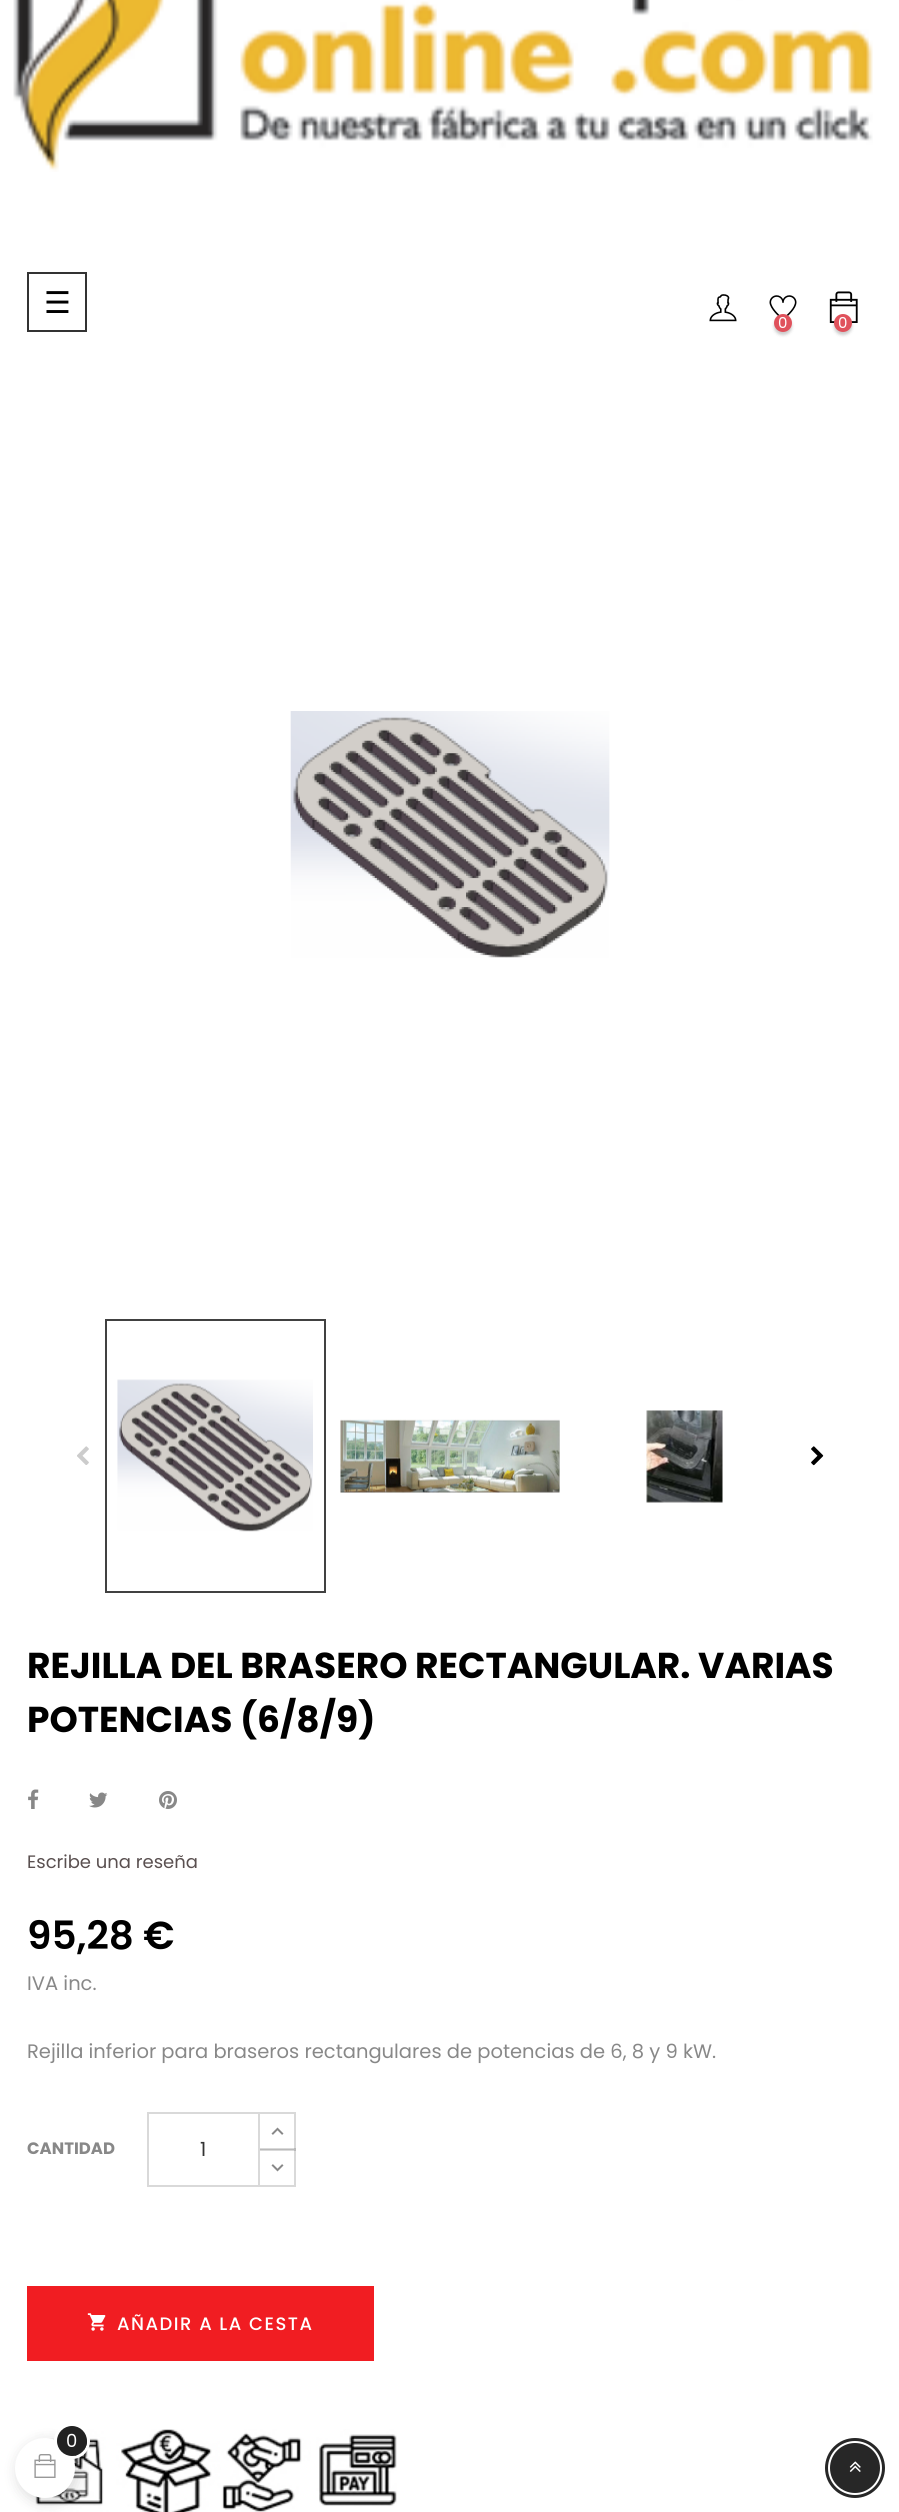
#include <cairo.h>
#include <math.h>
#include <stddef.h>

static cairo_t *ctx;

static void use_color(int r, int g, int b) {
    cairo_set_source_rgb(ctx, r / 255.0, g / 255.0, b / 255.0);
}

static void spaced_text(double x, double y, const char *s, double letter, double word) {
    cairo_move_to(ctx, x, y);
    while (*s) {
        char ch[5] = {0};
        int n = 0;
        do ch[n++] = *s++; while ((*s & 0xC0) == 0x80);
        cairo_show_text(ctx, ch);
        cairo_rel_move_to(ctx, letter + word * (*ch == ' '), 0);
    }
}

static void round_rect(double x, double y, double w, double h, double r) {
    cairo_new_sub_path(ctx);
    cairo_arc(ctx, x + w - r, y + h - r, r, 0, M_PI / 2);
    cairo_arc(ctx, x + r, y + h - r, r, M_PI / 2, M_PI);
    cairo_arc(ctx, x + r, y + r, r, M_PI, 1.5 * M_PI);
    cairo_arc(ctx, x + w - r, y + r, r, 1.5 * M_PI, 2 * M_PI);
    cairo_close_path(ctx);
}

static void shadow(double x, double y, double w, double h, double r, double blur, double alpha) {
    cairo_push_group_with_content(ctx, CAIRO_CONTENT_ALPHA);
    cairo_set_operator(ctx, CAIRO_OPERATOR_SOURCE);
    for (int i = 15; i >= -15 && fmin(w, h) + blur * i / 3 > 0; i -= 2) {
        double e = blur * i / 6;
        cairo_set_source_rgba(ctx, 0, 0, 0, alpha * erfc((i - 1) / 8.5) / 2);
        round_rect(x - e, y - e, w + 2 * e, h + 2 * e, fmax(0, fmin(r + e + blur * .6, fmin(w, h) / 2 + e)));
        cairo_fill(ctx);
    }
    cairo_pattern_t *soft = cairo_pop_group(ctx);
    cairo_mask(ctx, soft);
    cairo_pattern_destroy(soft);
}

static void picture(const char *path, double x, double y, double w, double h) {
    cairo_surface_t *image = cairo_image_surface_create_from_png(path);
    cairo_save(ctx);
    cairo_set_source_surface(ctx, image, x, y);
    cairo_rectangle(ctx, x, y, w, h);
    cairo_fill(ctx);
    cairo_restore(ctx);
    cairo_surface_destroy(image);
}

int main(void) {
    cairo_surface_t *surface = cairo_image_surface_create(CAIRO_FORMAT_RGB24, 899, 2512);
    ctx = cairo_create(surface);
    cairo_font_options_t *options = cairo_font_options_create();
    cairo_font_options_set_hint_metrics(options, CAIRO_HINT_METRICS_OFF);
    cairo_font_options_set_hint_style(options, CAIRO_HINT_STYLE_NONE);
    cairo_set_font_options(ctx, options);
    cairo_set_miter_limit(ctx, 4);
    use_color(255, 255, 255);
    cairo_paint(ctx);
    picture("img1.png", 13, 0, 860, 172);
    cairo_rectangle(ctx, 28, 273, 58, 58);
    use_color(51, 51, 51);
    cairo_stroke(ctx);
    cairo_select_font_face(ctx, "DejaVu Sans", CAIRO_FONT_SLANT_NORMAL, CAIRO_FONT_WEIGHT_NORMAL);
    cairo_set_font_size(ctx, 30);
    use_color(0, 0, 0);
    cairo_move_to(ctx, 44, 313);
    cairo_show_text(ctx, "☰");
    picture("img2.png", 709, 294, 28, 28);
    picture("img3.png", 769, 295, 28, 21);
    use_color(0, 0, 0);
    shadow(774, 317, 18, 18, 9, 1.5, 0.2);
    use_color(224, 82, 92);
    cairo_arc(ctx, 783, 323, 9, 0, 2 * M_PI);
    cairo_fill(ctx);
    cairo_select_font_face(ctx, "Poppins", CAIRO_FONT_SLANT_NORMAL, CAIRO_FONT_WEIGHT_NORMAL);
    cairo_set_font_size(ctx, 15);
    use_color(255, 255, 255);
    cairo_move_to(ctx, 778, 328);
    cairo_show_text(ctx, "0");
    picture("img4.png", 829, 291, 29, 32);
    use_color(0, 0, 0);
    shadow(834, 317, 18, 18, 9, 1.5, 0.2);
    use_color(224, 82, 92);
    cairo_arc(ctx, 843, 323, 9, 0, 2 * M_PI);
    cairo_fill(ctx);
    use_color(255, 255, 255);
    cairo_move_to(ctx, 838, 328);
    cairo_show_text(ctx, "0");
    picture("img5.png", 290, 711, 320, 247);
    cairo_rectangle(ctx, 106, 1320, 219, 272);
    use_color(65, 65, 65);
    cairo_stroke(ctx);
    picture("img6.png", 117, 1379, 196, 153);
    picture("img7.png", 340, 1419, 220, 74);
    picture("img8.png", 646, 1410, 77, 93);
    picture("img9.png", 77, 1446, 12, 19);
    picture("img10.png", 811, 1446, 13, 20);
    cairo_select_font_face(ctx, "Poppins", CAIRO_FONT_SLANT_NORMAL, CAIRO_FONT_WEIGHT_BOLD);
    cairo_set_font_size(ctx, 36);
    use_color(0, 0, 0);
    cairo_move_to(ctx, 27, 1678);
    cairo_show_text(ctx, "REJILLA DEL BRASERO RECTANGULAR. VARIAS");
    cairo_move_to(ctx, 27, 1732);
    cairo_show_text(ctx, "POTENCIAS (6/8/9)");
    picture("img11.png", 28, 1789, 11, 20);
    picture("img12.png", 89, 1792, 19, 16);
    picture("img13.png", 159, 1791, 18, 18);
    cairo_select_font_face(ctx, "Poppins", CAIRO_FONT_SLANT_NORMAL, CAIRO_FONT_WEIGHT_NORMAL);
    cairo_set_font_size(ctx, 18);
    use_color(90, 80, 80);
    cairo_move_to(ctx, 27, 1868);
    cairo_show_text(ctx, "Escribe una reseña");
    cairo_select_font_face(ctx, "Poppins SemiBold", CAIRO_FONT_SLANT_NORMAL, CAIRO_FONT_WEIGHT_NORMAL);
    cairo_set_font_size(ctx, 39);
    use_color(0, 0, 0);
    cairo_move_to(ctx, 27, 1949);
    cairo_show_text(ctx, "95,28 €");
    cairo_select_font_face(ctx, "Poppins", CAIRO_FONT_SLANT_NORMAL, CAIRO_FONT_WEIGHT_NORMAL);
    cairo_set_font_size(ctx, 19.5);
    use_color(136, 136, 136);
    cairo_move_to(ctx, 27, 1990);
    cairo_show_text(ctx, "IVA inc.");
    cairo_move_to(ctx, 27, 2058);
    cairo_show_text(ctx, "Rejilla inferior para braseros rectangulares de potencias de 6, 8 y 9 kW.");
    cairo_select_font_face(ctx, "Poppins", CAIRO_FONT_SLANT_NORMAL, CAIRO_FONT_WEIGHT_BOLD);
    cairo_set_font_size(ctx, 16.5);
    cairo_move_to(ctx, 27, 2154);
    cairo_show_text(ctx, "CANTIDAD");
    cairo_rectangle(ctx, 259, 2113, 36, 37);
    use_color(217, 217, 217);
    cairo_stroke(ctx);
    cairo_rectangle(ctx, 259, 2149, 36, 37);
    cairo_set_source_rgba(ctx, 0, 0, 0, 0.15);
    cairo_stroke(ctx);
    cairo_rectangle(ctx, 148, 2113, 111, 73);
    use_color(217, 217, 217);
    cairo_stroke(ctx);
    cairo_select_font_face(ctx, "Poppins", CAIRO_FONT_SLANT_NORMAL, CAIRO_FONT_WEIGHT_NORMAL);
    cairo_set_font_size(ctx, 19.5);
    use_color(51, 51, 51);
    cairo_move_to(ctx, 200, 2156);
    cairo_show_text(ctx, "1");
    picture("img14.png", 271, 2127, 13, 8);
    picture("img15.png", 271, 2164, 13, 8);
    use_color(241, 29, 34);
    cairo_rectangle(ctx, 27, 2286, 347, 75);
    cairo_fill(ctx);
    picture("img16.png", 87, 2313, 19, 18);
    cairo_select_font_face(ctx, "Poppins Medium", CAIRO_FONT_SLANT_NORMAL, CAIRO_FONT_WEIGHT_NORMAL);
    cairo_set_font_size(ctx, 18);
    use_color(255, 255, 255);
    spaced_text(117, 2330, "AÑADIR A LA CESTA", 1.5, 0);
    picture("img17.png", 35, 2429, 362, 83);
    use_color(39, 39, 39);
    cairo_arc(ctx, 855, 2468, 30, 0, 2 * M_PI);
    cairo_fill(ctx);
    cairo_arc(ctx, 855, 2468, 26, 0, 2 * M_PI);
    use_color(255, 255, 255);
    cairo_stroke(ctx);
    picture("img18.png", 849, 2461, 12, 11);
    use_color(0, 0, 0);
    shadow(18, 2442, 60, 60, 30, 7.5, 0.15);
    use_color(255, 255, 255);
    cairo_arc(ctx, 45, 2468, 30, 0, 2 * M_PI);
    cairo_fill(ctx);
    picture("img19.png", 34, 2454, 22, 24);
    cairo_arc(ctx, 72, 2441, 16.5, 0, 2 * M_PI);
    cairo_set_line_width(ctx, 3);
    cairo_stroke(ctx);
    use_color(34, 34, 34);
    cairo_arc(ctx, 72, 2441, 15, 0, 2 * M_PI);
    cairo_fill(ctx);
    cairo_select_font_face(ctx, "Poppins", CAIRO_FONT_SLANT_NORMAL, CAIRO_FONT_WEIGHT_NORMAL);
    use_color(255, 255, 255);
    cairo_move_to(ctx, 66, 2447);
    cairo_show_text(ctx, "0");
    cairo_surface_write_to_png(surface, "result.png");
    cairo_font_options_destroy(options);
    cairo_destroy(ctx);
    cairo_surface_destroy(surface);
    return 0;
}
